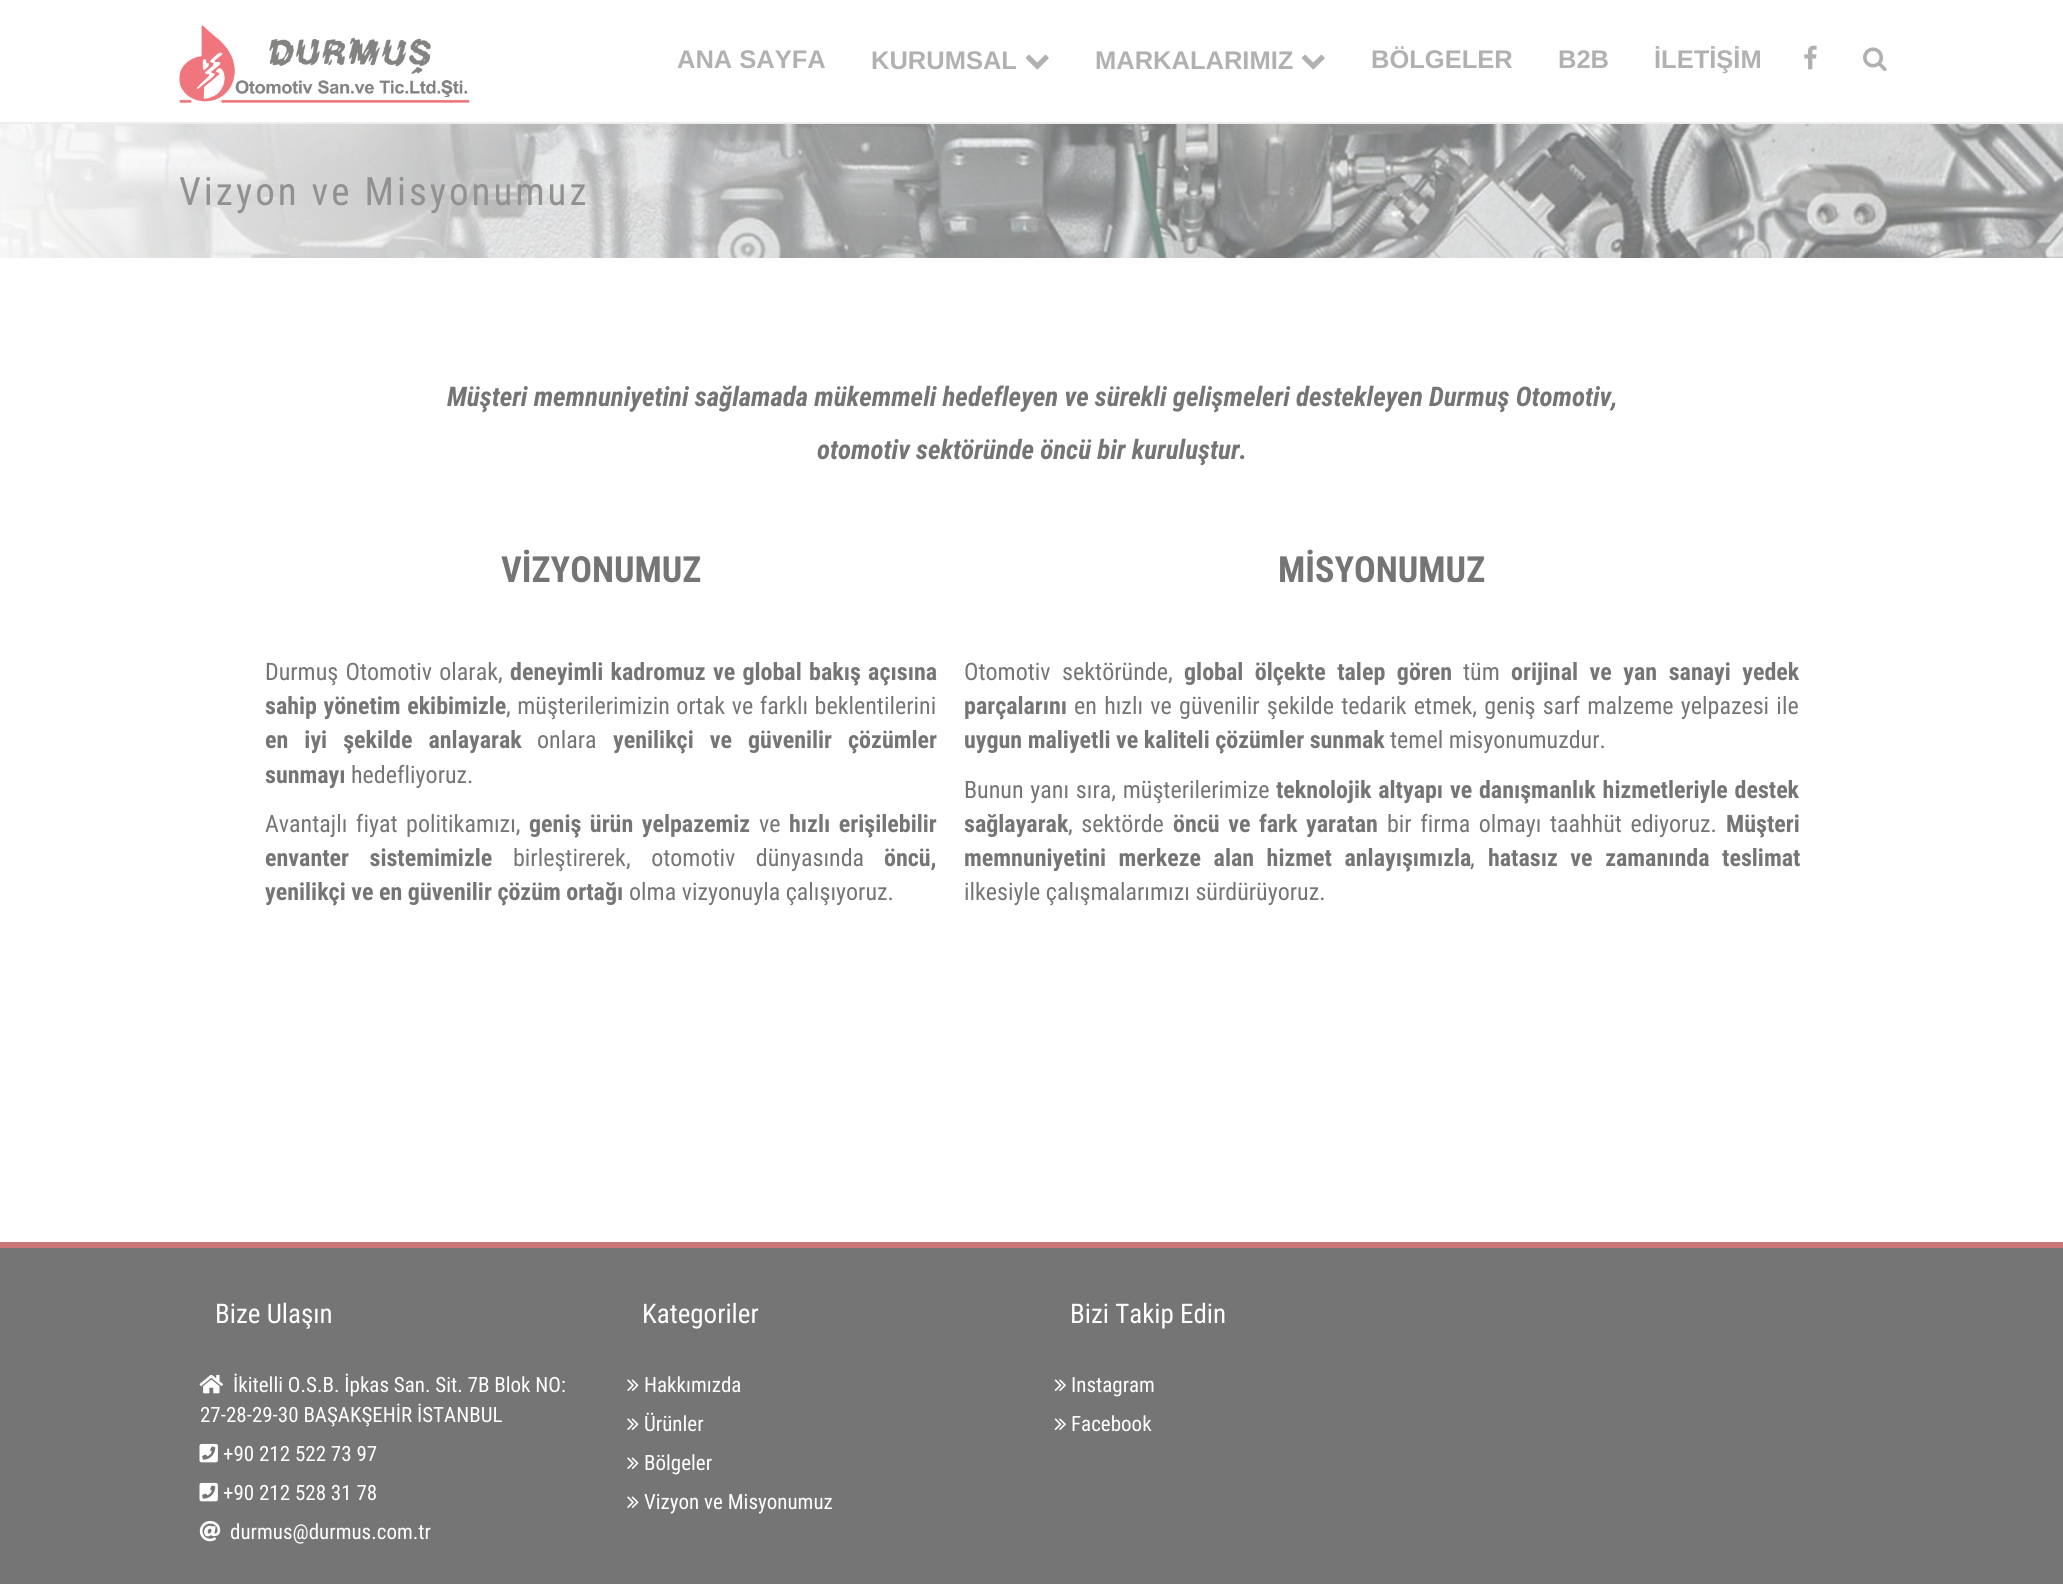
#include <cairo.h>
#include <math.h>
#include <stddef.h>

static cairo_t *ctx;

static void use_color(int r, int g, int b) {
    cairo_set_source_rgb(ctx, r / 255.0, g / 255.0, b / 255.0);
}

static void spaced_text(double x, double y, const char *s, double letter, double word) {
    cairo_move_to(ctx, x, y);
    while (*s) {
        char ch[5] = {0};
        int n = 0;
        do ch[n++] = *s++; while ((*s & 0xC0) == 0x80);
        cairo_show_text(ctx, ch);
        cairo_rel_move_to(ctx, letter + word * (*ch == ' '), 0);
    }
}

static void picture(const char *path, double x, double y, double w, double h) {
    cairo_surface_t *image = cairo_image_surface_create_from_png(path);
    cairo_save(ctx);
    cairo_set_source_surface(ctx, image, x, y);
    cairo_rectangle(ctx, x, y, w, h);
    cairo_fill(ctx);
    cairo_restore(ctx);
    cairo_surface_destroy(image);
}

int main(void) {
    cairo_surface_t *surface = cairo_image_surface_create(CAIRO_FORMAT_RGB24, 2063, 1584);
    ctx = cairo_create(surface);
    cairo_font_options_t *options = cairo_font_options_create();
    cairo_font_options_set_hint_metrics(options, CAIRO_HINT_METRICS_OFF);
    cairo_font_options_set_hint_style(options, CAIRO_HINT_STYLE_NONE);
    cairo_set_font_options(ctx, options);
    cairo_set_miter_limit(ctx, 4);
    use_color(255, 255, 255);
    cairo_paint(ctx);
    use_color(238, 238, 238);
    cairo_rectangle(ctx, 0, 122, 2063, 2);
    cairo_fill(ctx);
    picture("img1.png", 179, 25, 291, 78);
    cairo_select_font_face(ctx, "Liberation Sans", CAIRO_FONT_SLANT_NORMAL, CAIRO_FONT_WEIGHT_BOLD);
    cairo_set_font_size(ctx, 25.5);
    use_color(177, 177, 177);
    cairo_move_to(ctx, 677, 68);
    cairo_show_text(ctx, "ANA SAYFA");
    cairo_move_to(ctx, 871, 69);
    cairo_show_text(ctx, "KURUMSAL");
    picture("img2.png", 1025, 54, 24, 16);
    cairo_move_to(ctx, 1095, 69);
    cairo_show_text(ctx, "MARKALARIMIZ");
    picture("img2.png", 1301, 54, 24, 16);
    cairo_move_to(ctx, 1371, 68);
    cairo_show_text(ctx, "BÖLGELER");
    cairo_move_to(ctx, 1558, 68);
    cairo_show_text(ctx, "B2B");
    cairo_move_to(ctx, 1654, 68);
    cairo_show_text(ctx, "İLETİŞİM");
    picture("img3.png", 1804, 45, 13, 25);
    picture("img4.png", 1863, 47, 24, 25);
    picture("img5.png", 0, 124, 2063, 134);
    cairo_select_font_face(ctx, "Roboto Condensed", CAIRO_FONT_SLANT_NORMAL, CAIRO_FONT_WEIGHT_NORMAL);
    cairo_set_font_size(ctx, 39);
    use_color(145, 145, 145);
    spaced_text(179, 205, "Vizyon ve Misyonumuz", 3, 0);
    cairo_select_font_face(ctx, "Roboto Condensed", CAIRO_FONT_SLANT_ITALIC, CAIRO_FONT_WEIGHT_BOLD);
    cairo_set_font_size(ctx, 27);
    use_color(117, 117, 117);
    cairo_move_to(ctx, 447, 406);
    cairo_show_text(ctx, "Müşteri memnuniyetini sağlamada mükemmeli hedefleyen ve sürekli gelişmeleri destekleyen Durmuş Otomotiv,");
    cairo_move_to(ctx, 817, 459);
    cairo_show_text(ctx, "otomotiv sektöründe öncü bir kuruluştur.");
    cairo_select_font_face(ctx, "Roboto Condensed", CAIRO_FONT_SLANT_NORMAL, CAIRO_FONT_WEIGHT_BOLD);
    cairo_set_font_size(ctx, 36);
    cairo_move_to(ctx, 501, 582);
    cairo_show_text(ctx, "VİZYONUMUZ");
    cairo_move_to(ctx, 1278, 582);
    cairo_show_text(ctx, "MİSYONUMUZ");
    cairo_select_font_face(ctx, "Roboto Condensed", CAIRO_FONT_SLANT_NORMAL, CAIRO_FONT_WEIGHT_NORMAL);
    cairo_set_font_size(ctx, 24);
    spaced_text(265, 680, "Durmuş Otomotiv olarak,", 0, 1.75);
    cairo_select_font_face(ctx, "Roboto Condensed", CAIRO_FONT_SLANT_NORMAL, CAIRO_FONT_WEIGHT_BOLD);
    spaced_text(510, 680, "deneyimli kadromuz ve global bakış açısına", 0, 1.75);
    spaced_text(265, 714, "sahip yönetim ekibimizle", 0, 1);
    cairo_select_font_face(ctx, "Roboto Condensed", CAIRO_FONT_SLANT_NORMAL, CAIRO_FONT_WEIGHT_NORMAL);
    spaced_text(506, 714, ", müşterilerimizin ortak ve farklı beklentilerini", 0, 1);
    cairo_select_font_face(ctx, "Roboto Condensed", CAIRO_FONT_SLANT_NORMAL, CAIRO_FONT_WEIGHT_BOLD);
    spaced_text(265, 748, "en iyi şekilde anlayarak", 0, 10.5);
    cairo_select_font_face(ctx, "Roboto Condensed", CAIRO_FONT_SLANT_NORMAL, CAIRO_FONT_WEIGHT_NORMAL);
    cairo_move_to(ctx, 537, 748);
    cairo_show_text(ctx, "onlara");
    cairo_select_font_face(ctx, "Roboto Condensed", CAIRO_FONT_SLANT_NORMAL, CAIRO_FONT_WEIGHT_BOLD);
    spaced_text(613, 748, "yenilikçi ve güvenilir çözümler", 0, 10.5);
    cairo_move_to(ctx, 265, 783);
    cairo_show_text(ctx, "sunmayı");
    cairo_select_font_face(ctx, "Roboto Condensed", CAIRO_FONT_SLANT_NORMAL, CAIRO_FONT_WEIGHT_NORMAL);
    cairo_move_to(ctx, 351, 783);
    cairo_show_text(ctx, "hedefliyoruz.");
    spaced_text(265, 832, "Avantajlı fiyat politikamızı,", 0, 3);
    cairo_select_font_face(ctx, "Roboto Condensed", CAIRO_FONT_SLANT_NORMAL, CAIRO_FONT_WEIGHT_BOLD);
    spaced_text(529, 832, "geniş ürün yelpazemiz", 0, 3);
    cairo_select_font_face(ctx, "Roboto Condensed", CAIRO_FONT_SLANT_NORMAL, CAIRO_FONT_WEIGHT_NORMAL);
    cairo_move_to(ctx, 759, 832);
    cairo_show_text(ctx, "ve");
    cairo_select_font_face(ctx, "Roboto Condensed", CAIRO_FONT_SLANT_NORMAL, CAIRO_FONT_WEIGHT_BOLD);
    spaced_text(789, 832, "hızlı erişilebilir", 0, 3);
    spaced_text(265, 866, "envanter sistemimizle", 0, 15);
    cairo_select_font_face(ctx, "Roboto Condensed", CAIRO_FONT_SLANT_NORMAL, CAIRO_FONT_WEIGHT_NORMAL);
    spaced_text(513, 866, "birleştirerek, otomotiv dünyasında", 0, 15);
    cairo_select_font_face(ctx, "Roboto Condensed", CAIRO_FONT_SLANT_NORMAL, CAIRO_FONT_WEIGHT_BOLD);
    cairo_move_to(ctx, 884, 866);
    cairo_show_text(ctx, "öncü,");
    cairo_move_to(ctx, 265, 900);
    cairo_show_text(ctx, "yenilikçi ve en güvenilir çözüm ortağı");
    cairo_select_font_face(ctx, "Roboto Condensed", CAIRO_FONT_SLANT_NORMAL, CAIRO_FONT_WEIGHT_NORMAL);
    cairo_move_to(ctx, 629, 900);
    cairo_show_text(ctx, "olma vizyonuyla çalışıyoruz.");
    spaced_text(964, 680, "Otomotiv sektöründe,", 0, 6);
    cairo_select_font_face(ctx, "Roboto Condensed", CAIRO_FONT_SLANT_NORMAL, CAIRO_FONT_WEIGHT_BOLD);
    spaced_text(1184, 680, "global ölçekte talep gören", 0, 6);
    cairo_select_font_face(ctx, "Roboto Condensed", CAIRO_FONT_SLANT_NORMAL, CAIRO_FONT_WEIGHT_NORMAL);
    cairo_move_to(ctx, 1463, 680);
    cairo_show_text(ctx, "tüm");
    cairo_select_font_face(ctx, "Roboto Condensed", CAIRO_FONT_SLANT_NORMAL, CAIRO_FONT_WEIGHT_BOLD);
    spaced_text(1511, 680, "orijinal ve yan sanayi yedek", 0, 6);
    cairo_move_to(ctx, 964, 714);
    cairo_show_text(ctx, "parçalarını");
    cairo_select_font_face(ctx, "Roboto Condensed", CAIRO_FONT_SLANT_NORMAL, CAIRO_FONT_WEIGHT_NORMAL);
    spaced_text(1074, 714, "en hızlı ve güvenilir şekilde tedarik etmek, geniş sarf malzeme yelpazesi ile", 0, 1.75);
    cairo_select_font_face(ctx, "Roboto Condensed", CAIRO_FONT_SLANT_NORMAL, CAIRO_FONT_WEIGHT_BOLD);
    cairo_move_to(ctx, 964, 748);
    cairo_show_text(ctx, "uygun maliyetli ve kaliteli çözümler sunmak");
    cairo_select_font_face(ctx, "Roboto Condensed", CAIRO_FONT_SLANT_NORMAL, CAIRO_FONT_WEIGHT_NORMAL);
    cairo_move_to(ctx, 1390, 748);
    cairo_show_text(ctx, "temel misyonumuzdur.");
    spaced_text(964, 798, "Bunun yanı sıra, müşterilerimize", 0, 1.25);
    cairo_select_font_face(ctx, "Roboto Condensed", CAIRO_FONT_SLANT_NORMAL, CAIRO_FONT_WEIGHT_BOLD);
    spaced_text(1276, 798, "teknolojik altyapı ve danışmanlık hizmetleriyle destek", 0, 1.25);
    cairo_move_to(ctx, 964, 832);
    cairo_show_text(ctx, "sağlayarak");
    cairo_select_font_face(ctx, "Roboto Condensed", CAIRO_FONT_SLANT_NORMAL, CAIRO_FONT_WEIGHT_NORMAL);
    spaced_text(1068, 832, ", sektörde", 0, 3);
    cairo_select_font_face(ctx, "Roboto Condensed", CAIRO_FONT_SLANT_NORMAL, CAIRO_FONT_WEIGHT_BOLD);
    spaced_text(1173, 832, "öncü ve fark yaratan", 0, 3);
    cairo_select_font_face(ctx, "Roboto Condensed", CAIRO_FONT_SLANT_NORMAL, CAIRO_FONT_WEIGHT_NORMAL);
    spaced_text(1387, 832, "bir firma olmayı taahhüt ediyoruz.", 0, 3);
    cairo_select_font_face(ctx, "Roboto Condensed", CAIRO_FONT_SLANT_NORMAL, CAIRO_FONT_WEIGHT_BOLD);
    cairo_move_to(ctx, 1726, 832);
    cairo_show_text(ctx, "Müşteri");
    spaced_text(964, 866, "memnuniyetini merkeze alan hizmet anlayışımızla", 0, 7);
    cairo_select_font_face(ctx, "Roboto Condensed", CAIRO_FONT_SLANT_NORMAL, CAIRO_FONT_WEIGHT_NORMAL);
    cairo_move_to(ctx, 1470, 866);
    cairo_show_text(ctx, ",");
    cairo_select_font_face(ctx, "Roboto Condensed", CAIRO_FONT_SLANT_NORMAL, CAIRO_FONT_WEIGHT_BOLD);
    spaced_text(1488, 866, "hatasız ve zamanında teslimat", 0, 7);
    cairo_select_font_face(ctx, "Roboto Condensed", CAIRO_FONT_SLANT_NORMAL, CAIRO_FONT_WEIGHT_NORMAL);
    cairo_move_to(ctx, 964, 900);
    cairo_show_text(ctx, "ilkesiyle çalışmalarımızı sürdürüyoruz.");
    use_color(200, 117, 117);
    cairo_rectangle(ctx, 0, 1242, 2063, 6);
    cairo_fill(ctx);
    use_color(117, 117, 117);
    cairo_rectangle(ctx, 0, 1248, 2063, 336);
    cairo_fill(ctx);
    cairo_set_font_size(ctx, 27);
    use_color(255, 255, 255);
    cairo_move_to(ctx, 215, 1323);
    cairo_show_text(ctx, "Bize Ulaşın");
    picture("img6.png", 199, 1374, 25, 20);
    cairo_set_font_size(ctx, 21);
    cairo_move_to(ctx, 233, 1392);
    cairo_show_text(ctx, "İkitelli O.S.B. İpkas San. Sit. 7B Blok NO:");
    cairo_move_to(ctx, 200, 1422);
    cairo_show_text(ctx, "27-28-29-30 BAŞAKŞEHİR İSTANBUL");
    picture("img7.png", 199, 1443, 19, 20);
    cairo_move_to(ctx, 223, 1461);
    cairo_show_text(ctx, "+90 212 522 73 97");
    picture("img7.png", 199, 1482, 19, 20);
    cairo_move_to(ctx, 223, 1500);
    cairo_show_text(ctx, "+90 212 528 31 78");
    picture("img8.png", 199, 1521, 22, 21);
    cairo_move_to(ctx, 230, 1539);
    cairo_show_text(ctx, "durmus@durmus.com.tr");
    cairo_set_font_size(ctx, 27);
    cairo_move_to(ctx, 642, 1323);
    cairo_show_text(ctx, "Kategoriler");
    picture("img9.png", 627, 1379, 12, 12);
    cairo_set_font_size(ctx, 21);
    cairo_move_to(ctx, 644, 1392);
    cairo_show_text(ctx, "Hakkımızda");
    picture("img9.png", 627, 1418, 12, 12);
    cairo_move_to(ctx, 644, 1431);
    cairo_show_text(ctx, "Ürünler");
    picture("img9.png", 627, 1457, 12, 12);
    cairo_move_to(ctx, 644, 1470);
    cairo_show_text(ctx, "Bölgeler");
    picture("img9.png", 627, 1496, 12, 12);
    cairo_move_to(ctx, 644, 1509);
    cairo_show_text(ctx, "Vizyon ve Misyonumuz");
    cairo_set_font_size(ctx, 27);
    cairo_move_to(ctx, 1070, 1323);
    cairo_show_text(ctx, "Bizi Takip Edin");
    picture("img10.png", 1054, 1379, 12, 12);
    cairo_set_font_size(ctx, 21);
    cairo_move_to(ctx, 1071, 1392);
    cairo_show_text(ctx, "Instagram");
    picture("img10.png", 1054, 1418, 12, 12);
    cairo_move_to(ctx, 1071, 1431);
    cairo_show_text(ctx, "Facebook");
    cairo_surface_write_to_png(surface, "result.png");
    cairo_font_options_destroy(options);
    cairo_destroy(ctx);
    cairo_surface_destroy(surface);
    return 0;
}
